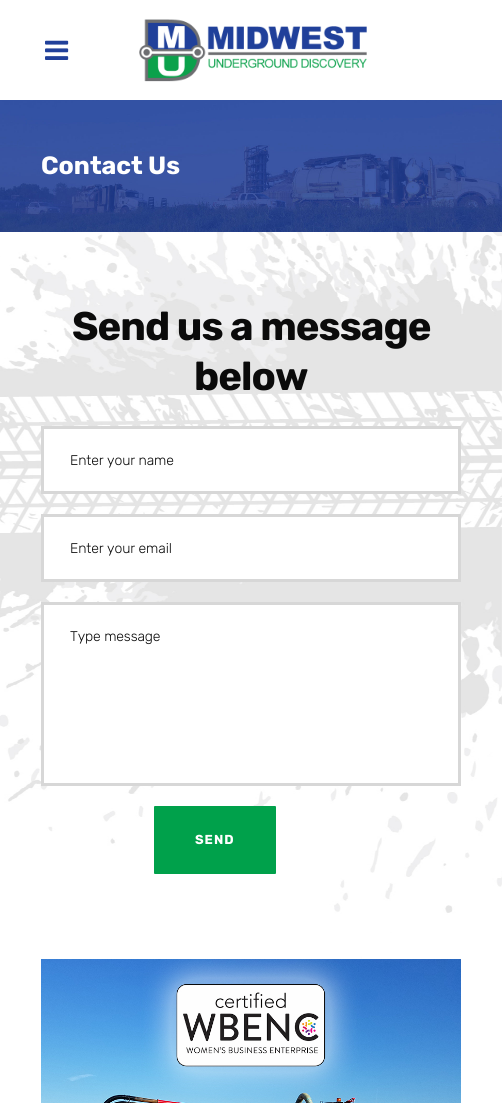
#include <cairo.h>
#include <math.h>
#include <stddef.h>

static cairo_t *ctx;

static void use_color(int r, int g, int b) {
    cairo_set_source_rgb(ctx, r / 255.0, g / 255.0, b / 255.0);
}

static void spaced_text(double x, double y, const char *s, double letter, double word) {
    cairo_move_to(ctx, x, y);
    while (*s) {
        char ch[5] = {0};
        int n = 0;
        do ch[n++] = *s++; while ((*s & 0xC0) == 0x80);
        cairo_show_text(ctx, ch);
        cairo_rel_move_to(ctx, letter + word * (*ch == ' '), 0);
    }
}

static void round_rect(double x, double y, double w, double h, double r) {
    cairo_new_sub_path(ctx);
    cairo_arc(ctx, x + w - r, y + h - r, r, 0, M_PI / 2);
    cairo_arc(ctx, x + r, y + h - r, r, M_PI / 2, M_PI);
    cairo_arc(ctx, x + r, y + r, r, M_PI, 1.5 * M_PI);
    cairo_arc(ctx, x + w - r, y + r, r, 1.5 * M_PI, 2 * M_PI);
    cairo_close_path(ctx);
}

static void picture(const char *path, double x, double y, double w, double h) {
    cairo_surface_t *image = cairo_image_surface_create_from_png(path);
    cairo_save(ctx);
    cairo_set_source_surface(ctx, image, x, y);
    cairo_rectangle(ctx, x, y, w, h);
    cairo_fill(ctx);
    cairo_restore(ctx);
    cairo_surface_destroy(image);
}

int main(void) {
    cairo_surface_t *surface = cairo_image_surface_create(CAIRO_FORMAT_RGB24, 502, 1103);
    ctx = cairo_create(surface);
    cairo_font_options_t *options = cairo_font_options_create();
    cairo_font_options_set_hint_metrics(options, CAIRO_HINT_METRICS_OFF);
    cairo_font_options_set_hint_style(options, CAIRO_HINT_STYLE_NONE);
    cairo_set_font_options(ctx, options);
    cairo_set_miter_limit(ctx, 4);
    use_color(255, 255, 255);
    cairo_paint(ctx);
    picture("img1.png", 0, 232, 502, 773);
    picture("img2.png", 45, 40, 24, 20);
    picture("img3.png", 139, 19, 228, 63);
    picture("img4.png", 0, 100, 502, 132);
    cairo_select_font_face(ctx, "Rubik", CAIRO_FONT_SLANT_NORMAL, CAIRO_FONT_WEIGHT_BOLD);
    cairo_set_font_size(ctx, 25);
    use_color(255, 255, 255);
    cairo_move_to(ctx, 41, 174);
    cairo_show_text(ctx, "Contact Us");
    cairo_set_font_size(ctx, 40);
    use_color(11, 11, 11);
    spaced_text(72, 340, "Send us a message", -1, 0);
    spaced_text(194, 390, "below", -1, 0);
    use_color(255, 255, 255);
    cairo_rectangle(ctx, 44, 429, 414, 62);
    cairo_fill(ctx);
    cairo_new_path(ctx);
    cairo_move_to(ctx, 42.5, 427.5);
    cairo_line_to(ctx, 459.5, 427.5);
    cairo_line_to(ctx, 459.5, 492.5);
    cairo_line_to(ctx, 42.5, 492.5);
    cairo_close_path(ctx);
    use_color(215, 215, 215);
    cairo_set_line_width(ctx, 3);
    cairo_stroke(ctx);
    cairo_select_font_face(ctx, "Rubik Light", CAIRO_FONT_SLANT_NORMAL, CAIRO_FONT_WEIGHT_NORMAL);
    cairo_set_font_size(ctx, 14);
    use_color(11, 11, 11);
    spaced_text(70, 465, "Enter your name", -0.1, 0);
    use_color(255, 255, 255);
    cairo_rectangle(ctx, 44, 517, 414, 62);
    cairo_fill(ctx);
    cairo_new_path(ctx);
    cairo_move_to(ctx, 42.5, 515.5);
    cairo_line_to(ctx, 459.5, 515.5);
    cairo_line_to(ctx, 459.5, 580.5);
    cairo_line_to(ctx, 42.5, 580.5);
    cairo_close_path(ctx);
    use_color(215, 215, 215);
    cairo_stroke(ctx);
    use_color(11, 11, 11);
    spaced_text(70, 553, "Enter your email", -0.1, 0);
    use_color(255, 255, 255);
    cairo_rectangle(ctx, 44, 605, 414, 178);
    cairo_fill(ctx);
    cairo_new_path(ctx);
    cairo_move_to(ctx, 42.5, 603.5);
    cairo_line_to(ctx, 459.5, 603.5);
    cairo_line_to(ctx, 459.5, 784.5);
    cairo_line_to(ctx, 42.5, 784.5);
    cairo_close_path(ctx);
    use_color(215, 215, 215);
    cairo_stroke(ctx);
    use_color(11, 11, 11);
    spaced_text(70, 641, "Type message", -0.1, 0);
    use_color(0, 161, 75);
    round_rect(154.5, 806.5, 121, 67, 0.5);
    cairo_fill_preserve(ctx);
    cairo_set_line_width(ctx, 1);
    cairo_stroke(ctx);
    cairo_select_font_face(ctx, "Rubik", CAIRO_FONT_SLANT_NORMAL, CAIRO_FONT_WEIGHT_BOLD);
    cairo_set_font_size(ctx, 13);
    use_color(255, 255, 255);
    spaced_text(195, 844, "SEND", 1, 0);
    cairo_rectangle(ctx, 362, 933, 89, 72);
    cairo_fill(ctx);
    picture("img5.png", 41, 959, 420, 144);
    cairo_surface_write_to_png(surface, "result.png");
    cairo_font_options_destroy(options);
    cairo_destroy(ctx);
    cairo_surface_destroy(surface);
    return 0;
}
